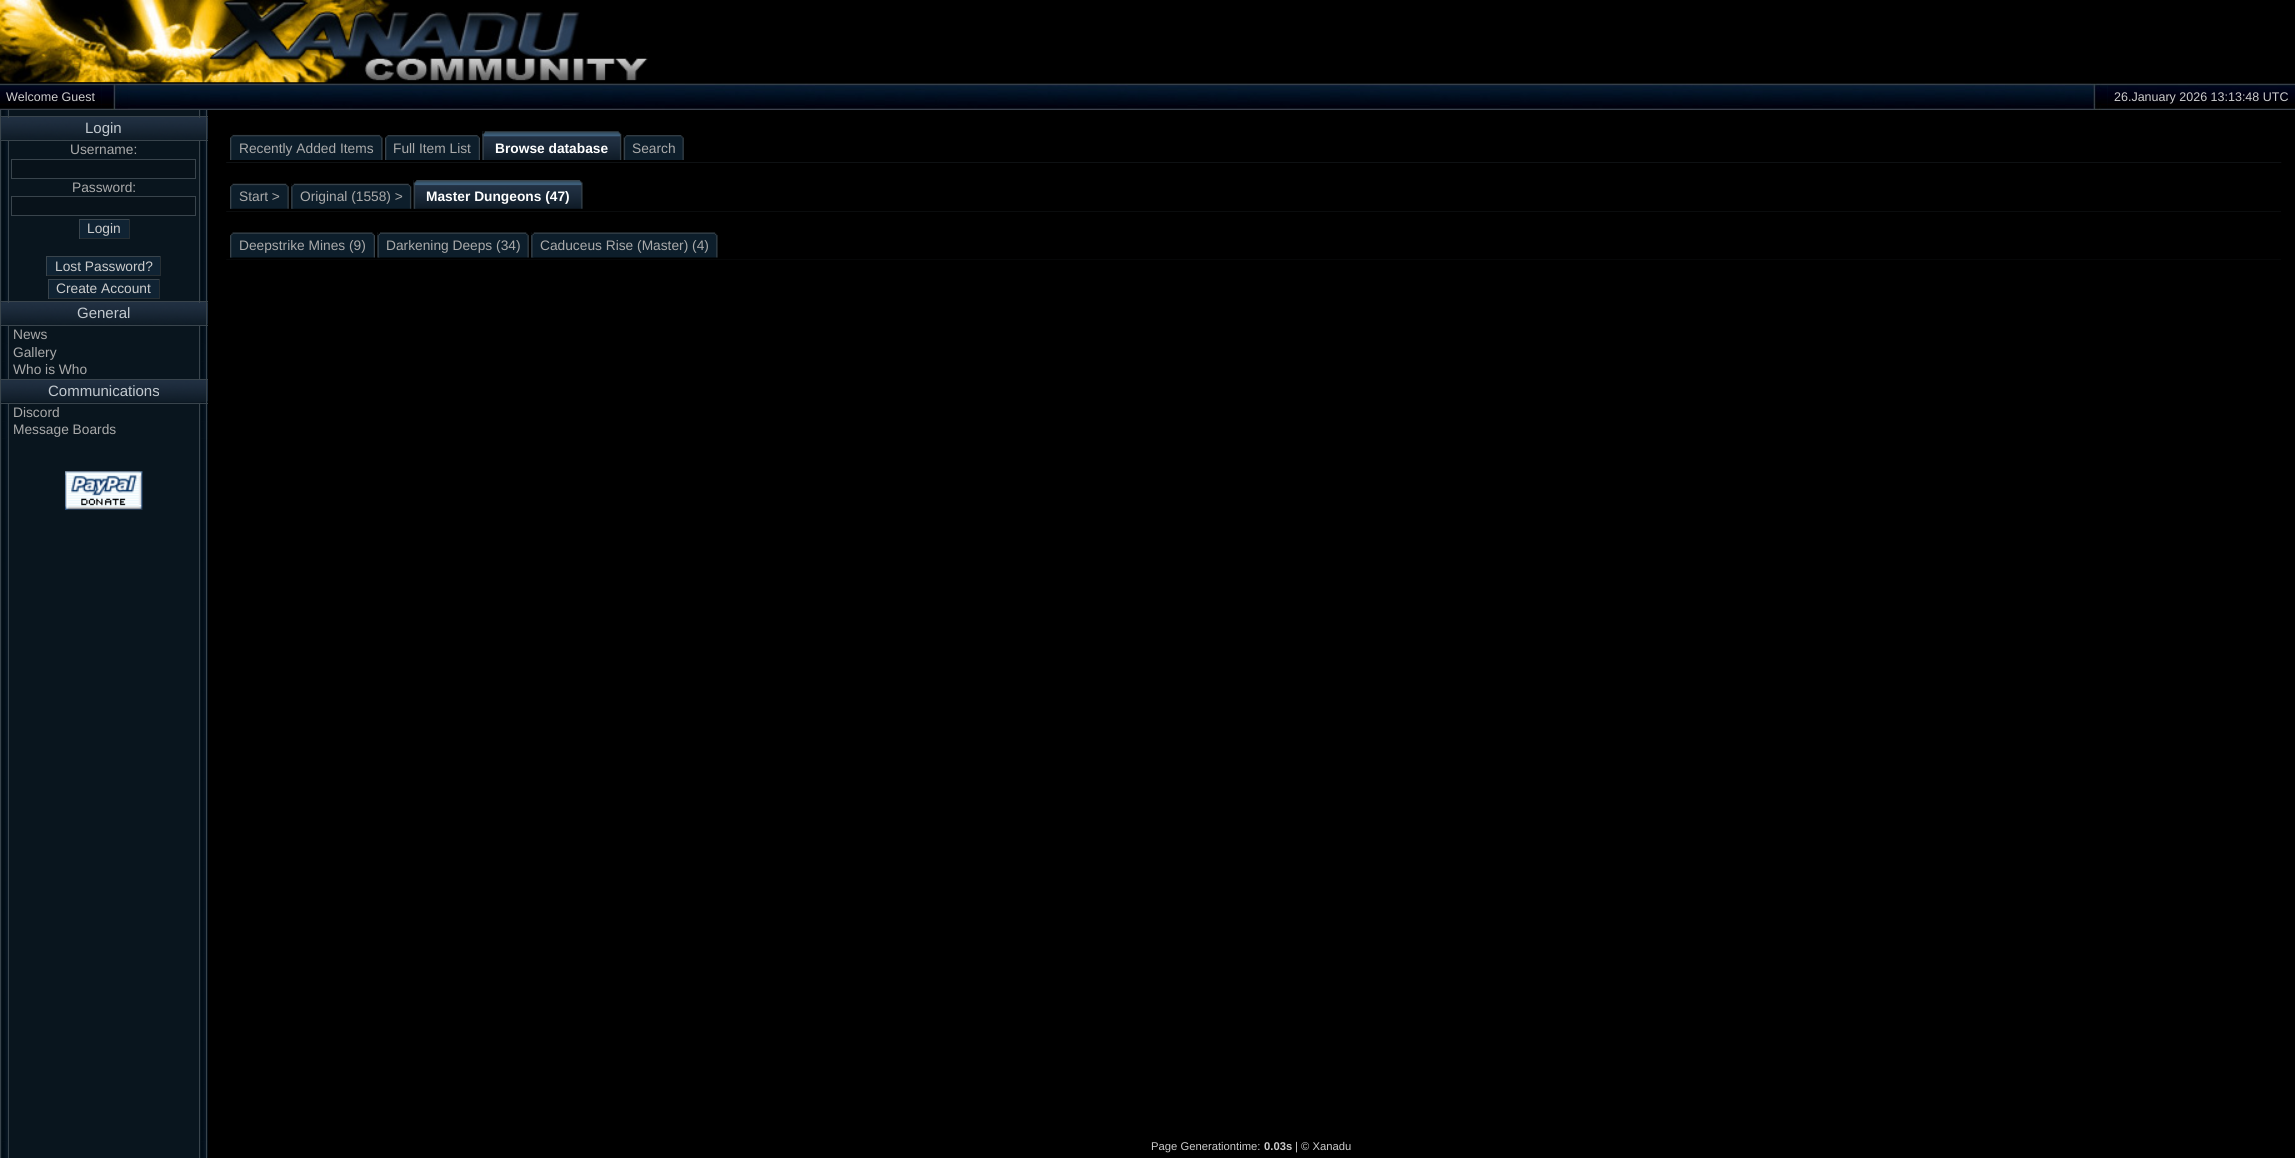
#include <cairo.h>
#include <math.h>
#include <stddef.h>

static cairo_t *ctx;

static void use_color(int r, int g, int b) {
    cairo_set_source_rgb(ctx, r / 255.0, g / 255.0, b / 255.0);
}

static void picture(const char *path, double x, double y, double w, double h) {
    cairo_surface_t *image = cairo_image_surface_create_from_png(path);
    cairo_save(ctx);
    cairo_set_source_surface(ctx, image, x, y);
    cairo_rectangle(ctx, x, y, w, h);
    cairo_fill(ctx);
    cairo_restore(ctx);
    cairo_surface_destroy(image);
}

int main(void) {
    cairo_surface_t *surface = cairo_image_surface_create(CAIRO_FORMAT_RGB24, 2295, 1158);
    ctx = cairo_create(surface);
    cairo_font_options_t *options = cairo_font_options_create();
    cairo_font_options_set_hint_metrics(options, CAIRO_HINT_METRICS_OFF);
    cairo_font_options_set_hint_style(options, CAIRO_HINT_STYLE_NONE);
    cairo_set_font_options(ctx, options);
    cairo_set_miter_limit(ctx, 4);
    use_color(0, 0, 0);
    cairo_paint(ctx);
    picture("img1.png", 0, 0, 648, 83);
    picture("img2.png", 0, 82, 2295, 28);
    picture("img3.png", 0, 82, 102, 27);
    cairo_select_font_face(ctx, "Liberation Sans", CAIRO_FONT_SLANT_NORMAL, CAIRO_FONT_WEIGHT_NORMAL);
    cairo_set_font_size(ctx, 12.5);
    use_color(204, 204, 204);
    cairo_move_to(ctx, 6, 101);
    cairo_show_text(ctx, "Welcome Guest");
    picture("img4.png", 101, 82, 27, 28);
    picture("img5.png", 2091, 83, 17, 27);
    picture("img6.png", 2107, 83, 188, 26);
    cairo_move_to(ctx, 2114, 101);
    cairo_show_text(ctx, "26.January 2026 13:13:48 UTC");
    use_color(9, 21, 30);
    cairo_rectangle(ctx, 1, 110, 207, 1048);
    cairo_fill(ctx);
    picture("img8.png", 201, 110, 7, 6);
    use_color(33, 48, 66);
    cairo_rectangle(ctx, 1, 118, 207, 21);
    cairo_fill(ctx);
    picture("img9.png", 1, 117, 207, 23);
    picture("img11.png", 201, 141, 7, 160);
    cairo_rectangle(ctx, 1, 303, 207, 21);
    cairo_fill(ctx);
    picture("img9.png", 1, 302, 207, 23);
    picture("img13.png", 201, 326, 7, 18);
    picture("img15.png", 201, 344, 7, 17);
    picture("img17.png", 201, 361, 7, 18);
    cairo_rectangle(ctx, 1, 380, 207, 21);
    cairo_fill(ctx);
    picture("img18.png", 1, 380, 207, 23);
    picture("img20.png", 201, 1141, 7, 17);
    picture("img22.png", 201, 402, 7, 19);
    picture("img17.png", 201, 421, 7, 18);
    picture("img26.png", 201, 439, 7, 702);
    use_color(57, 68, 76);
    cairo_rectangle(ctx, 206, 110, 1, 1048);
    cairo_fill(ctx);
    cairo_rectangle(ctx, 0, 110, 1, 1048);
    cairo_fill(ctx);
    picture("img7.png", 2, 110, 6, 6);
    cairo_rectangle(ctx, 0, 116, 208, 1);
    cairo_fill(ctx);
    cairo_rectangle(ctx, 8, 110, 1, 8);
    cairo_fill(ctx);
    cairo_rectangle(ctx, 199, 110, 1, 8);
    cairo_fill(ctx);
    cairo_rectangle(ctx, 0, 301, 208, 1);
    cairo_fill(ctx);
    cairo_rectangle(ctx, 8, 140, 1, 163);
    cairo_fill(ctx);
    cairo_rectangle(ctx, 199, 140, 1, 163);
    cairo_fill(ctx);
    cairo_rectangle(ctx, 0, 140, 208, 1);
    cairo_fill(ctx);
    cairo_set_font_size(ctx, 15);
    use_color(194, 201, 207);
    cairo_move_to(ctx, 85, 133);
    cairo_show_text(ctx, "Login");
    picture("img10.png", 2, 141, 6, 160);
    cairo_set_font_size(ctx, 13.75);
    use_color(170, 170, 170);
    cairo_move_to(ctx, 70, 154);
    cairo_show_text(ctx, "Username:");
    use_color(8, 18, 26);
    cairo_rectangle(ctx, 11.5, 159.5, 184, 19);
    cairo_fill_preserve(ctx);
    use_color(57, 68, 76);
    cairo_set_line_width(ctx, 1);
    cairo_stroke(ctx);
    use_color(170, 170, 170);
    cairo_move_to(ctx, 72, 192);
    cairo_show_text(ctx, "Password:");
    use_color(8, 18, 26);
    cairo_rectangle(ctx, 11.5, 196.5, 184, 19);
    cairo_fill_preserve(ctx);
    use_color(57, 68, 76);
    cairo_stroke(ctx);
    use_color(16, 35, 51);
    cairo_rectangle(ctx, 80, 220, 49, 18);
    cairo_fill(ctx);
    use_color(57, 68, 76);
    cairo_rectangle(ctx, 79, 219, 51, 1);
    cairo_fill(ctx);
    use_color(38, 46, 51);
    cairo_rectangle(ctx, 129, 219, 1, 20);
    cairo_fill(ctx);
    cairo_rectangle(ctx, 79, 238, 51, 1);
    cairo_fill(ctx);
    use_color(57, 68, 76);
    cairo_rectangle(ctx, 79, 219, 1, 20);
    cairo_fill(ctx);
    use_color(204, 204, 204);
    cairo_move_to(ctx, 87, 233);
    cairo_show_text(ctx, "Login");
    use_color(16, 35, 51);
    cairo_rectangle(ctx, 47, 257, 113, 18);
    cairo_fill(ctx);
    use_color(57, 68, 76);
    cairo_rectangle(ctx, 46, 256, 115, 1);
    cairo_fill(ctx);
    use_color(38, 46, 51);
    cairo_rectangle(ctx, 160, 256, 1, 20);
    cairo_fill(ctx);
    cairo_rectangle(ctx, 46, 275, 115, 1);
    cairo_fill(ctx);
    use_color(57, 68, 76);
    cairo_rectangle(ctx, 46, 256, 1, 20);
    cairo_fill(ctx);
    use_color(204, 204, 204);
    cairo_move_to(ctx, 55, 271);
    cairo_show_text(ctx, "Lost Password?");
    use_color(16, 35, 51);
    cairo_rectangle(ctx, 49, 280, 110, 18);
    cairo_fill(ctx);
    use_color(57, 68, 76);
    cairo_rectangle(ctx, 48, 279, 112, 1);
    cairo_fill(ctx);
    use_color(38, 46, 51);
    cairo_rectangle(ctx, 159, 279, 1, 20);
    cairo_fill(ctx);
    cairo_rectangle(ctx, 48, 298, 112, 1);
    cairo_fill(ctx);
    use_color(57, 68, 76);
    cairo_rectangle(ctx, 48, 279, 1, 20);
    cairo_fill(ctx);
    use_color(204, 204, 204);
    cairo_move_to(ctx, 56, 293);
    cairo_show_text(ctx, "Create Account");
    use_color(57, 68, 76);
    cairo_rectangle(ctx, 0, 379, 208, 1);
    cairo_fill(ctx);
    cairo_rectangle(ctx, 8, 325, 1, 55);
    cairo_fill(ctx);
    cairo_rectangle(ctx, 199, 325, 1, 55);
    cairo_fill(ctx);
    cairo_rectangle(ctx, 0, 325, 208, 1);
    cairo_fill(ctx);
    cairo_set_font_size(ctx, 15);
    use_color(194, 201, 207);
    cairo_move_to(ctx, 77, 318);
    cairo_show_text(ctx, "General");
    picture("img12.png", 2, 326, 6, 18);
    cairo_set_font_size(ctx, 13.75);
    use_color(170, 170, 170);
    cairo_move_to(ctx, 13, 339);
    cairo_show_text(ctx, "News");
    picture("img14.png", 2, 344, 6, 17);
    cairo_move_to(ctx, 13, 357);
    cairo_show_text(ctx, "Gallery");
    picture("img16.png", 2, 361, 6, 18);
    cairo_move_to(ctx, 13, 374);
    cairo_show_text(ctx, "Who is Who");
    picture("img21.png", 2, 402, 7, 19);
    use_color(57, 68, 76);
    cairo_rectangle(ctx, 8, 403, 1, 755);
    cairo_fill(ctx);
    cairo_rectangle(ctx, 199, 403, 1, 755);
    cairo_fill(ctx);
    cairo_rectangle(ctx, 0, 403, 208, 1);
    cairo_fill(ctx);
    cairo_set_font_size(ctx, 15);
    use_color(194, 201, 207);
    cairo_move_to(ctx, 48, 396);
    cairo_show_text(ctx, "Communications");
    picture("img19.png", 2, 1141, 6, 17);
    cairo_set_font_size(ctx, 13.75);
    use_color(170, 170, 170);
    cairo_move_to(ctx, 13, 417);
    cairo_show_text(ctx, "Discord");
    picture("img23.png", 2, 421, 6, 18);
    cairo_move_to(ctx, 13, 434);
    cairo_show_text(ctx, "Message Boards");
    picture("img24.png", 2, 439, 6, 702);
    use_color(8, 18, 26);
    cairo_rectangle(ctx, 65, 471, 78, 39);
    cairo_fill(ctx);
    picture("img25.png", 65, 471, 78, 39);
    picture("img27.png", 226, 162, 2056, 1);
    picture("img28.png", 230, 134, 153, 26);
    picture("img29.png", 230, 135, 3, 25);
    use_color(170, 170, 170);
    cairo_move_to(ctx, 239, 153);
    cairo_show_text(ctx, "Recently Added Items");
    picture("img30.png", 387, 135, 93, 25);
    picture("img29.png", 385, 135, 3, 25);
    cairo_move_to(ctx, 393, 153);
    cairo_show_text(ctx, "Full Item List");
    picture("img31.png", 482, 131, 140, 29);
    picture("img32.png", 482, 131, 3, 29);
    cairo_select_font_face(ctx, "Liberation Sans", CAIRO_FONT_SLANT_NORMAL, CAIRO_FONT_WEIGHT_BOLD);
    use_color(255, 255, 255);
    cairo_move_to(ctx, 495, 153);
    cairo_show_text(ctx, "Browse database");
    picture("img33.png", 623, 135, 61, 25);
    picture("img34.png", 623, 135, 4, 25);
    cairo_select_font_face(ctx, "Liberation Sans", CAIRO_FONT_SLANT_NORMAL, CAIRO_FONT_WEIGHT_NORMAL);
    use_color(170, 170, 170);
    cairo_move_to(ctx, 632, 153);
    cairo_show_text(ctx, "Search");
    picture("img35.png", 226, 211, 2055, 1);
    picture("img36.png", 230, 183, 59, 26);
    picture("img37.png", 230, 183, 3, 26);
    cairo_move_to(ctx, 239, 201);
    cairo_show_text(ctx, "Start >");
    picture("img38.png", 291, 183, 121, 26);
    picture("img39.png", 291, 183, 3, 26);
    cairo_move_to(ctx, 300, 201);
    cairo_show_text(ctx, "Original (1558) >");
    picture("img40.png", 413, 180, 170, 29);
    picture("img41.png", 413, 180, 4, 29);
    cairo_select_font_face(ctx, "Liberation Sans", CAIRO_FONT_SLANT_NORMAL, CAIRO_FONT_WEIGHT_BOLD);
    use_color(255, 255, 255);
    cairo_move_to(ctx, 426, 201);
    cairo_show_text(ctx, "Master Dungeons (47)");
    picture("img42.png", 226, 259, 2055, 1);
    picture("img43.png", 230, 232, 145, 26);
    picture("img44.png", 230, 232, 3, 26);
    cairo_select_font_face(ctx, "Liberation Sans", CAIRO_FONT_SLANT_NORMAL, CAIRO_FONT_WEIGHT_NORMAL);
    use_color(170, 170, 170);
    cairo_move_to(ctx, 239, 250);
    cairo_show_text(ctx, "Deepstrike Mines (9)");
    picture("img45.png", 377, 232, 152, 26);
    picture("img46.png", 377, 232, 3, 26);
    cairo_move_to(ctx, 386, 250);
    cairo_show_text(ctx, "Darkening Deeps (34)");
    picture("img47.png", 531, 232, 187, 26);
    picture("img48.png", 531, 232, 3, 26);
    cairo_move_to(ctx, 540, 250);
    cairo_show_text(ctx, "Caduceus Rise (Master) (4)");
    cairo_set_font_size(ctx, 11.25);
    use_color(204, 204, 204);
    cairo_move_to(ctx, 1151, 1150);
    cairo_show_text(ctx, "Page Generationtime:");
    cairo_select_font_face(ctx, "Liberation Sans", CAIRO_FONT_SLANT_NORMAL, CAIRO_FONT_WEIGHT_BOLD);
    cairo_move_to(ctx, 1264, 1150);
    cairo_show_text(ctx, "0.03s");
    cairo_select_font_face(ctx, "Liberation Sans", CAIRO_FONT_SLANT_NORMAL, CAIRO_FONT_WEIGHT_NORMAL);
    cairo_move_to(ctx, 1295, 1150);
    cairo_show_text(ctx, "| © Xanadu");
    cairo_surface_write_to_png(surface, "result.png");
    cairo_font_options_destroy(options);
    cairo_destroy(ctx);
    cairo_surface_destroy(surface);
    return 0;
}
